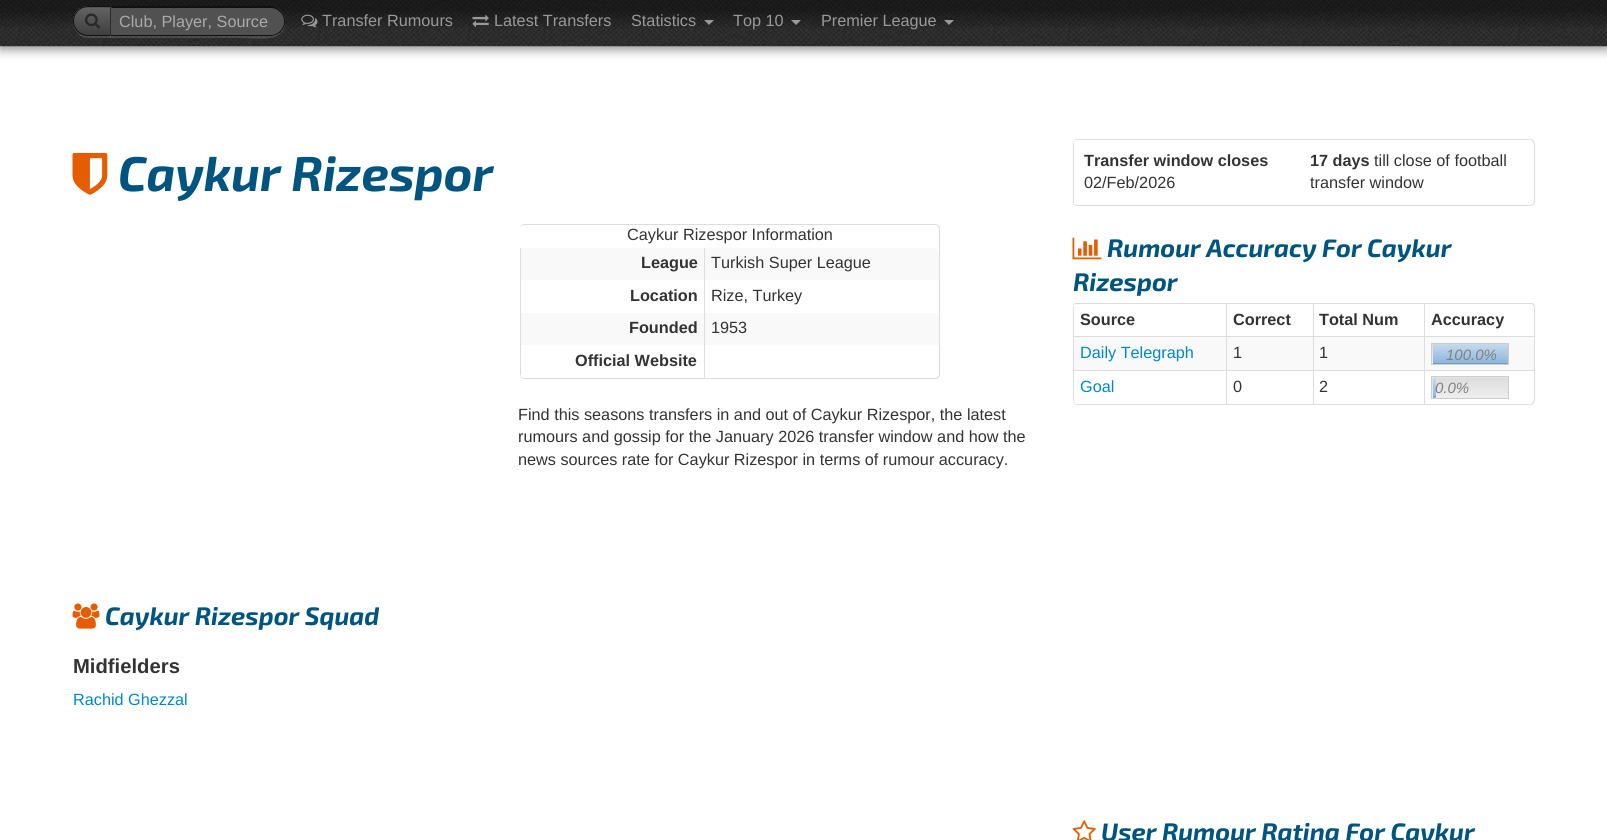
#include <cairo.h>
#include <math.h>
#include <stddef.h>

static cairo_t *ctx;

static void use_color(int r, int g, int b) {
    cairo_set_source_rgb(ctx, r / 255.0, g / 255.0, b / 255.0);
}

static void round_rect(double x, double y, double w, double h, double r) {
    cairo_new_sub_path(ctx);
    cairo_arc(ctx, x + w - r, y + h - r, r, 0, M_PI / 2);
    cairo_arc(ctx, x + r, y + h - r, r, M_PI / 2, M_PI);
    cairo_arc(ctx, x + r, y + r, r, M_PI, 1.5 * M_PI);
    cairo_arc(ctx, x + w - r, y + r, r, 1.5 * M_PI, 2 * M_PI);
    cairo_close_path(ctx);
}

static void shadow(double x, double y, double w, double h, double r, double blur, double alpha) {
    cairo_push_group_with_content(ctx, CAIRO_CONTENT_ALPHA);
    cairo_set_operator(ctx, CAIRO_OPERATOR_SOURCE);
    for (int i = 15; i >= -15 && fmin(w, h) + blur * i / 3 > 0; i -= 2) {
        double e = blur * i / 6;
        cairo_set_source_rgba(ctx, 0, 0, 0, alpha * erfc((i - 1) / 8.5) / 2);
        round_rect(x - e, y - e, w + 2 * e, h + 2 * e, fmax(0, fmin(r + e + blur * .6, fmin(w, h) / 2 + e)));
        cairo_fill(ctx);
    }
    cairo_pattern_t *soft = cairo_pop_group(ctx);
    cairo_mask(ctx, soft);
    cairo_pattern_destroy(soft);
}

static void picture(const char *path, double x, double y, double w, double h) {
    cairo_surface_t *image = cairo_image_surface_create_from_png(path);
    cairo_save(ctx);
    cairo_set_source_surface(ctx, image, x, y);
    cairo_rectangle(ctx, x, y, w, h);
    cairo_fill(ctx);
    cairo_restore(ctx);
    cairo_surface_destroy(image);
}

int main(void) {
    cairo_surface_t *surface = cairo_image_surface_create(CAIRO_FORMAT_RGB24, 1607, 840);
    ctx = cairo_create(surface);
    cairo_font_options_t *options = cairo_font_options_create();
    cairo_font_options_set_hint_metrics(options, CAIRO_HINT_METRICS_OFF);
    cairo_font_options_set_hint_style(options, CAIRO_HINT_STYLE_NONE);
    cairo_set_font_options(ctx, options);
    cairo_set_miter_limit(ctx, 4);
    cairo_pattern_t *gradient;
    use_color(255, 255, 255);
    cairo_paint(ctx);
    use_color(0, 0, 0);
    shadow(0, 4, 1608, 46, 0, 5, 0.4);
    picture("img1.png", 0, 0, 1607, 47);
    cairo_set_source_rgba(ctx, 1, 1, 1, 0.15);
    cairo_new_path(ctx);
    cairo_move_to(ctx, 73.5, 26);
    cairo_curve_to(ctx, 75, 33, 81, 38, 88, 38);
    cairo_line_to(ctx, 111, 38);
    cairo_line_to(ctx, 111, 36);
    cairo_line_to(ctx, 87.5, 36);
    cairo_curve_to(ctx, 81, 36, 75.5, 32, 73.5, 26);
    cairo_close_path(ctx);
    cairo_fill(ctx);
    use_color(84, 84, 84);
    cairo_new_path(ctx);
    cairo_move_to(ctx, 88, 6);
    cairo_line_to(ctx, 111, 6);
    cairo_line_to(ctx, 111, 36);
    cairo_line_to(ctx, 88, 36);
    cairo_curve_to(ctx, 79.5, 36, 73, 29.5, 73, 21);
    cairo_curve_to(ctx, 73, 12.5, 79.5, 6, 88, 6);
    cairo_close_path(ctx);
    cairo_fill(ctx);
    cairo_save(ctx);
    cairo_new_path(ctx);
    cairo_move_to(ctx, 88, 6);
    cairo_line_to(ctx, 111, 6);
    cairo_line_to(ctx, 111, 36);
    cairo_line_to(ctx, 88, 36);
    cairo_curve_to(ctx, 79.5, 36, 73, 29.5, 73, 21);
    cairo_curve_to(ctx, 73, 12.5, 79.5, 6, 88, 6);
    cairo_close_path(ctx);
    cairo_clip(ctx);
    gradient = cairo_pattern_create_linear(92, 7.5, 92, 35);
    cairo_pattern_add_color_stop_rgba(gradient, 0, 0.388, 0.388, 0.388, 1);
    cairo_pattern_add_color_stop_rgba(gradient, 1, 0.247, 0.247, 0.247, 1);
    cairo_set_source(ctx, gradient);
    cairo_pattern_destroy(gradient);
    cairo_rectangle(ctx, 73, 8, 37, 27);
    cairo_fill(ctx);
    cairo_restore(ctx);
    cairo_new_path(ctx);
    cairo_move_to(ctx, 88, 6.5);
    cairo_line_to(ctx, 110.5, 6.5);
    cairo_line_to(ctx, 110.5, 35.5);
    cairo_line_to(ctx, 88, 35.5);
    cairo_curve_to(ctx, 80, 35.5, 73.5, 29, 73.5, 21);
    cairo_curve_to(ctx, 73.5, 13, 80, 6.5, 88, 6.5);
    cairo_close_path(ctx);
    use_color(17, 17, 17);
    cairo_set_line_width(ctx, 1);
    cairo_stroke(ctx);
    picture("img2.png", 85, 13, 15, 16);
    use_color(81, 81, 81);
    cairo_new_path(ctx);
    cairo_move_to(ctx, 110, 6);
    cairo_line_to(ctx, 270, 6);
    cairo_curve_to(ctx, 278.5, 6, 285, 12.5, 285, 21);
    cairo_curve_to(ctx, 285, 29.5, 278.5, 36, 270, 36);
    cairo_line_to(ctx, 110, 36);
    cairo_close_path(ctx);
    cairo_fill(ctx);
    cairo_set_source_rgba(ctx, 1, 1, 1, 0.15);
    cairo_new_path(ctx);
    cairo_move_to(ctx, 110, 36);
    cairo_line_to(ctx, 110, 38);
    cairo_line_to(ctx, 243, 38);
    cairo_curve_to(ctx, 254, 38, 286, 44, 285, 22);
    cairo_curve_to(ctx, 285, 30, 278, 36, 270, 36);
    cairo_close_path(ctx);
    cairo_fill(ctx);
    use_color(17, 17, 17);
    cairo_new_path(ctx);
    cairo_move_to(ctx, 110, 6);
    cairo_line_to(ctx, 273, 6);
    cairo_curve_to(ctx, 276, 7, 278, 8, 281, 11);
    cairo_line_to(ctx, 280, 12);
    cairo_curve_to(ctx, 277, 9, 274, 8, 270, 8);
    cairo_line_to(ctx, 112, 8);
    cairo_close_path(ctx);
    cairo_fill(ctx);
    cairo_new_path(ctx);
    cairo_move_to(ctx, 280.5, 10.5);
    cairo_curve_to(ctx, 286.5, 16.5, 286.5, 26, 280.5, 32);
    cairo_line_to(ctx, 280, 31);
    cairo_curve_to(ctx, 285.5, 26, 285.5, 16.5, 279.5, 11.5);
    cairo_close_path(ctx);
    cairo_fill(ctx);
    cairo_new_path(ctx);
    cairo_move_to(ctx, 281, 32);
    cairo_curve_to(ctx, 278, 34, 274, 36, 270, 36);
    cairo_line_to(ctx, 110, 36);
    cairo_line_to(ctx, 111, 35);
    cairo_line_to(ctx, 270, 35);
    cairo_curve_to(ctx, 274, 35, 277, 34, 280, 31);
    cairo_close_path(ctx);
    cairo_fill(ctx);
    use_color(43, 43, 43);
    cairo_new_path(ctx);
    cairo_move_to(ctx, 111, 8);
    cairo_line_to(ctx, 112, 8);
    cairo_line_to(ctx, 110, 6);
    cairo_line_to(ctx, 110, 36);
    cairo_line_to(ctx, 111, 35);
    cairo_close_path(ctx);
    cairo_fill(ctx);
    cairo_select_font_face(ctx, "Liberation Sans", CAIRO_FONT_SLANT_NORMAL, CAIRO_FONT_WEIGHT_NORMAL);
    cairo_set_font_size(ctx, 16.25);
    use_color(170, 170, 170);
    cairo_move_to(ctx, 119, 27);
    cairo_show_text(ctx, "Club, Player, Source");
    picture("img3.png", 301, 14, 17, 14);
    use_color(153, 153, 153);
    cairo_move_to(ctx, 322, 26);
    cairo_show_text(ctx, "Transfer Rumours");
    picture("img4.png", 472, 15, 17, 13);
    cairo_move_to(ctx, 494, 26);
    cairo_show_text(ctx, "Latest Transfers");
    cairo_move_to(ctx, 631, 26);
    cairo_show_text(ctx, "Statistics");
    cairo_new_path(ctx);
    cairo_move_to(ctx, 704, 20);
    cairo_line_to(ctx, 714, 20);
    cairo_line_to(ctx, 709, 25);
    cairo_close_path(ctx);
    cairo_fill(ctx);
    cairo_move_to(ctx, 733, 26);
    cairo_show_text(ctx, "Top 10");
    cairo_new_path(ctx);
    cairo_move_to(ctx, 791, 20);
    cairo_line_to(ctx, 801, 20);
    cairo_line_to(ctx, 796, 25);
    cairo_close_path(ctx);
    cairo_fill(ctx);
    cairo_move_to(ctx, 821, 26);
    cairo_show_text(ctx, "Premier League");
    cairo_new_path(ctx);
    cairo_move_to(ctx, 944, 20);
    cairo_line_to(ctx, 954, 20);
    cairo_line_to(ctx, 949, 25);
    cairo_close_path(ctx);
    cairo_fill(ctx);
    picture("img5.png", 72, 152, 36, 43);
    cairo_select_font_face(ctx, "Exo 2", CAIRO_FONT_SLANT_ITALIC, CAIRO_FONT_WEIGHT_BOLD);
    cairo_set_font_size(ctx, 48.75);
    use_color(0, 85, 128);
    cairo_move_to(ctx, 118, 191);
    cairo_show_text(ctx, "Caykur Rizespor");
    use_color(221, 221, 221);
    cairo_set_fill_rule(ctx, CAIRO_FILL_RULE_EVEN_ODD);
    cairo_new_path(ctx);
    cairo_move_to(ctx, 525, 224);
    cairo_line_to(ctx, 935, 224);
    cairo_curve_to(ctx, 938, 224, 940, 226, 940, 229);
    cairo_line_to(ctx, 940, 374);
    cairo_curve_to(ctx, 940, 377, 938, 379, 935, 379);
    cairo_line_to(ctx, 525, 379);
    cairo_curve_to(ctx, 522, 379, 520, 377, 520, 374);
    cairo_line_to(ctx, 520, 229);
    cairo_curve_to(ctx, 520, 226, 522, 224, 525, 224);
    cairo_close_path(ctx);
    cairo_move_to(ctx, 525, 225);
    cairo_line_to(ctx, 935, 225);
    cairo_curve_to(ctx, 937, 225, 939, 227, 939, 229);
    cairo_line_to(ctx, 939, 374);
    cairo_curve_to(ctx, 939, 376, 937, 378, 935, 378);
    cairo_line_to(ctx, 525, 378);
    cairo_curve_to(ctx, 522, 378, 520, 376, 520, 374);
    cairo_line_to(ctx, 520, 229);
    cairo_curve_to(ctx, 520, 227, 522, 225, 525, 225);
    cairo_close_path(ctx);
    cairo_fill(ctx);
    cairo_select_font_face(ctx, "Liberation Sans", CAIRO_FONT_SLANT_NORMAL, CAIRO_FONT_WEIGHT_NORMAL);
    cairo_set_font_size(ctx, 16.25);
    use_color(51, 51, 51);
    cairo_move_to(ctx, 627, 240);
    cairo_show_text(ctx, "Caykur Rizespor Information");
    use_color(249, 249, 249);
    cairo_rectangle(ctx, 521, 248, 183, 32);
    cairo_fill(ctx);
    use_color(221, 221, 221);
    cairo_rectangle(ctx, 520, 248, 1, 127);
    cairo_fill(ctx);
    cairo_select_font_face(ctx, "Liberation Sans", CAIRO_FONT_SLANT_NORMAL, CAIRO_FONT_WEIGHT_BOLD);
    use_color(51, 51, 51);
    cairo_move_to(ctx, 641, 268);
    cairo_show_text(ctx, "League");
    use_color(249, 249, 249);
    cairo_new_path(ctx);
    cairo_move_to(ctx, 704, 248);
    cairo_line_to(ctx, 934, 248);
    cairo_curve_to(ctx, 937, 248, 939, 250, 939, 253);
    cairo_line_to(ctx, 939, 280);
    cairo_line_to(ctx, 704, 280);
    cairo_close_path(ctx);
    cairo_fill(ctx);
    use_color(221, 221, 221);
    cairo_rectangle(ctx, 704, 248, 1, 130);
    cairo_fill(ctx);
    cairo_select_font_face(ctx, "Liberation Sans", CAIRO_FONT_SLANT_NORMAL, CAIRO_FONT_WEIGHT_NORMAL);
    use_color(51, 51, 51);
    cairo_move_to(ctx, 711, 268);
    cairo_show_text(ctx, "Turkish Super League");
    cairo_select_font_face(ctx, "Liberation Sans", CAIRO_FONT_SLANT_NORMAL, CAIRO_FONT_WEIGHT_BOLD);
    cairo_move_to(ctx, 630, 301);
    cairo_show_text(ctx, "Location");
    cairo_select_font_face(ctx, "Liberation Sans", CAIRO_FONT_SLANT_NORMAL, CAIRO_FONT_WEIGHT_NORMAL);
    cairo_move_to(ctx, 711, 301);
    cairo_show_text(ctx, "Rize, Turkey");
    use_color(249, 249, 249);
    cairo_rectangle(ctx, 521, 313, 183, 32);
    cairo_fill(ctx);
    cairo_select_font_face(ctx, "Liberation Sans", CAIRO_FONT_SLANT_NORMAL, CAIRO_FONT_WEIGHT_BOLD);
    use_color(51, 51, 51);
    cairo_move_to(ctx, 629, 333);
    cairo_show_text(ctx, "Founded");
    use_color(249, 249, 249);
    cairo_rectangle(ctx, 705, 313, 234, 32);
    cairo_fill(ctx);
    cairo_select_font_face(ctx, "Liberation Sans", CAIRO_FONT_SLANT_NORMAL, CAIRO_FONT_WEIGHT_NORMAL);
    use_color(51, 51, 51);
    cairo_move_to(ctx, 711, 333);
    cairo_show_text(ctx, "1953");
    cairo_select_font_face(ctx, "Liberation Sans", CAIRO_FONT_SLANT_NORMAL, CAIRO_FONT_WEIGHT_BOLD);
    cairo_move_to(ctx, 575, 366);
    cairo_show_text(ctx, "Official Website");
    cairo_select_font_face(ctx, "Liberation Sans", CAIRO_FONT_SLANT_NORMAL, CAIRO_FONT_WEIGHT_NORMAL);
    cairo_move_to(ctx, 518, 420);
    cairo_show_text(ctx, "Find this seasons transfers in and out of Caykur Rizespor, the latest");
    cairo_move_to(ctx, 518, 442);
    cairo_show_text(ctx, "rumours and gossip for the January 2026 transfer window and how the");
    cairo_move_to(ctx, 518, 465);
    cairo_show_text(ctx, "news sources rate for Caykur Rizespor in terms of rumour accuracy.");
    picture("img6.png", 72, 603, 28, 26);
    cairo_select_font_face(ctx, "Exo 2", CAIRO_FONT_SLANT_ITALIC, CAIRO_FONT_WEIGHT_BOLD);
    cairo_set_font_size(ctx, 25.25);
    use_color(0, 85, 128);
    cairo_move_to(ctx, 105, 625);
    cairo_show_text(ctx, "Caykur Rizespor Squad");
    cairo_select_font_face(ctx, "Liberation Sans", CAIRO_FONT_SLANT_NORMAL, CAIRO_FONT_WEIGHT_BOLD);
    cairo_set_font_size(ctx, 20.25);
    use_color(51, 51, 51);
    cairo_move_to(ctx, 73, 673);
    cairo_show_text(ctx, "Midfielders");
    cairo_select_font_face(ctx, "Liberation Sans", CAIRO_FONT_SLANT_NORMAL, CAIRO_FONT_WEIGHT_NORMAL);
    cairo_set_font_size(ctx, 16.25);
    use_color(0, 136, 204);
    cairo_move_to(ctx, 73, 705);
    cairo_show_text(ctx, "Rachid Ghezzal");
    use_color(221, 221, 221);
    cairo_new_path(ctx);
    cairo_move_to(ctx, 1078, 139);
    cairo_line_to(ctx, 1530, 139);
    cairo_curve_to(ctx, 1533, 139, 1535, 141, 1535, 144);
    cairo_line_to(ctx, 1535, 201);
    cairo_curve_to(ctx, 1535, 204, 1533, 206, 1530, 206);
    cairo_line_to(ctx, 1078, 206);
    cairo_curve_to(ctx, 1075, 206, 1072, 204, 1072, 201);
    cairo_line_to(ctx, 1072, 144);
    cairo_curve_to(ctx, 1072, 141, 1075, 139, 1078, 139);
    cairo_close_path(ctx);
    cairo_move_to(ctx, 1078, 140);
    cairo_line_to(ctx, 1530, 140);
    cairo_curve_to(ctx, 1532, 140, 1534, 142, 1534, 144);
    cairo_line_to(ctx, 1534, 201);
    cairo_curve_to(ctx, 1534, 203, 1532, 205, 1530, 205);
    cairo_line_to(ctx, 1078, 205);
    cairo_curve_to(ctx, 1075, 205, 1072, 203, 1072, 201);
    cairo_line_to(ctx, 1072, 144);
    cairo_curve_to(ctx, 1072, 142, 1075, 140, 1078, 140);
    cairo_close_path(ctx);
    cairo_fill(ctx);
    cairo_rectangle(ctx, 1073, 143, 1, 60);
    cairo_fill(ctx);
    cairo_select_font_face(ctx, "Liberation Sans", CAIRO_FONT_SLANT_NORMAL, CAIRO_FONT_WEIGHT_BOLD);
    use_color(51, 51, 51);
    cairo_move_to(ctx, 1084, 166);
    cairo_show_text(ctx, "Transfer window closes");
    cairo_select_font_face(ctx, "Liberation Sans", CAIRO_FONT_SLANT_NORMAL, CAIRO_FONT_WEIGHT_NORMAL);
    cairo_move_to(ctx, 1084, 188);
    cairo_show_text(ctx, "02/Feb/2026");
    cairo_select_font_face(ctx, "Liberation Sans", CAIRO_FONT_SLANT_NORMAL, CAIRO_FONT_WEIGHT_BOLD);
    cairo_move_to(ctx, 1310, 166);
    cairo_show_text(ctx, "17 days");
    cairo_select_font_face(ctx, "Liberation Sans", CAIRO_FONT_SLANT_NORMAL, CAIRO_FONT_WEIGHT_NORMAL);
    cairo_move_to(ctx, 1374, 166);
    cairo_show_text(ctx, "till close of football");
    cairo_move_to(ctx, 1310, 188);
    cairo_show_text(ctx, "transfer window");
    picture("img7.png", 1072, 237, 30, 23);
    cairo_select_font_face(ctx, "Exo 2", CAIRO_FONT_SLANT_ITALIC, CAIRO_FONT_WEIGHT_BOLD);
    cairo_set_font_size(ctx, 25.25);
    use_color(0, 85, 128);
    cairo_move_to(ctx, 1107, 257);
    cairo_show_text(ctx, "Rumour Accuracy For Caykur");
    cairo_move_to(ctx, 1073, 291);
    cairo_show_text(ctx, "Rizespor");
    cairo_save(ctx);
    cairo_set_fill_rule(ctx, CAIRO_FILL_RULE_WINDING);
    cairo_rectangle(ctx, 1073, 303, 462, 112);
    cairo_clip(ctx);
    use_color(221, 221, 221);
    cairo_set_fill_rule(ctx, CAIRO_FILL_RULE_EVEN_ODD);
    cairo_new_path(ctx);
    cairo_move_to(ctx, 1078, 302);
    cairo_line_to(ctx, 1530, 302);
    cairo_curve_to(ctx, 1533, 302, 1535, 305, 1535, 308);
    cairo_line_to(ctx, 1535, 400);
    cairo_curve_to(ctx, 1535, 403, 1533, 405, 1530, 405);
    cairo_line_to(ctx, 1078, 405);
    cairo_curve_to(ctx, 1075, 405, 1072, 403, 1072, 400);
    cairo_line_to(ctx, 1072, 308);
    cairo_curve_to(ctx, 1072, 305, 1075, 302, 1078, 302);
    cairo_close_path(ctx);
    cairo_move_to(ctx, 1078, 304);
    cairo_line_to(ctx, 1530, 304);
    cairo_curve_to(ctx, 1532, 304, 1534, 305, 1534, 308);
    cairo_line_to(ctx, 1534, 400);
    cairo_curve_to(ctx, 1534, 402, 1532, 404, 1530, 404);
    cairo_line_to(ctx, 1078, 404);
    cairo_curve_to(ctx, 1075, 404, 1072, 402, 1072, 400);
    cairo_line_to(ctx, 1072, 308);
    cairo_curve_to(ctx, 1072, 305, 1075, 304, 1078, 304);
    cairo_close_path(ctx);
    cairo_fill(ctx);
    cairo_restore(ctx);
    use_color(221, 221, 221);
    cairo_rectangle(ctx, 1073, 306, 1, 30);
    cairo_fill(ctx);
    cairo_select_font_face(ctx, "Liberation Sans", CAIRO_FONT_SLANT_NORMAL, CAIRO_FONT_WEIGHT_BOLD);
    cairo_set_font_size(ctx, 16.25);
    use_color(51, 51, 51);
    cairo_move_to(ctx, 1080, 325);
    cairo_show_text(ctx, "Source");
    use_color(221, 221, 221);
    cairo_rectangle(ctx, 1226, 304, 1, 32);
    cairo_fill(ctx);
    use_color(51, 51, 51);
    cairo_move_to(ctx, 1233, 325);
    cairo_show_text(ctx, "Correct");
    use_color(221, 221, 221);
    cairo_rectangle(ctx, 1313, 304, 1, 32);
    cairo_fill(ctx);
    use_color(51, 51, 51);
    cairo_move_to(ctx, 1319, 325);
    cairo_show_text(ctx, "Total Num");
    use_color(221, 221, 221);
    cairo_rectangle(ctx, 1424, 304, 1, 32);
    cairo_fill(ctx);
    use_color(51, 51, 51);
    cairo_move_to(ctx, 1431, 325);
    cairo_show_text(ctx, "Accuracy");
    use_color(249, 249, 249);
    cairo_rectangle(ctx, 1074, 337, 152, 33);
    cairo_fill(ctx);
    use_color(221, 221, 221);
    cairo_rectangle(ctx, 1073, 336, 461, 1);
    cairo_fill(ctx);
    cairo_rectangle(ctx, 1073, 336, 1, 34);
    cairo_fill(ctx);
    cairo_select_font_face(ctx, "Liberation Sans", CAIRO_FONT_SLANT_NORMAL, CAIRO_FONT_WEIGHT_NORMAL);
    use_color(0, 136, 204);
    cairo_move_to(ctx, 1080, 358);
    cairo_show_text(ctx, "Daily Telegraph");
    use_color(249, 249, 249);
    cairo_rectangle(ctx, 1227, 337, 86, 33);
    cairo_fill(ctx);
    use_color(221, 221, 221);
    cairo_rectangle(ctx, 1226, 336, 1, 34);
    cairo_fill(ctx);
    use_color(51, 51, 51);
    cairo_move_to(ctx, 1233, 358);
    cairo_show_text(ctx, "1");
    use_color(249, 249, 249);
    cairo_rectangle(ctx, 1314, 337, 110, 33);
    cairo_fill(ctx);
    use_color(221, 221, 221);
    cairo_rectangle(ctx, 1313, 336, 1, 34);
    cairo_fill(ctx);
    use_color(51, 51, 51);
    cairo_move_to(ctx, 1319, 358);
    cairo_show_text(ctx, "1");
    use_color(249, 249, 249);
    cairo_rectangle(ctx, 1425, 337, 109, 33);
    cairo_fill(ctx);
    use_color(221, 221, 221);
    cairo_rectangle(ctx, 1424, 336, 1, 34);
    cairo_fill(ctx);
    gradient = cairo_pattern_create_linear(1470, 344, 1470, 364);
    cairo_pattern_add_color_stop_rgba(gradient, 0, 0.867, 0.867, 0.867, 1);
    cairo_pattern_add_color_stop_rgba(gradient, 1, 0.933, 0.933, 0.933, 1);
    cairo_set_source(ctx, gradient);
    cairo_pattern_destroy(gradient);
    cairo_rectangle(ctx, 1432, 344, 1, 20);
    cairo_fill(ctx);
    cairo_rectangle(ctx, 1431.5, 343.5, 77, 21);
    use_color(205, 205, 205);
    cairo_stroke(ctx);
    gradient = cairo_pattern_create_linear(1470, 344, 1470, 364);
    cairo_pattern_add_color_stop_rgba(gradient, 0, 0.769, 0.855, 0.929, 1);
    cairo_pattern_add_color_stop_rgba(gradient, 1, 0.541, 0.71, 0.863, 1);
    cairo_set_source(ctx, gradient);
    cairo_pattern_destroy(gradient);
    cairo_rectangle(ctx, 1433, 344, 75, 19);
    cairo_fill(ctx);
    use_color(118, 155, 187);
    cairo_rectangle(ctx, 1433, 363, 75, 1);
    cairo_fill(ctx);
    cairo_select_font_face(ctx, "Liberation Sans", CAIRO_FONT_SLANT_ITALIC, CAIRO_FONT_WEIGHT_NORMAL);
    cairo_set_font_size(ctx, 15);
    use_color(128, 128, 128);
    cairo_move_to(ctx, 1446, 360);
    cairo_show_text(ctx, "100.0%");
    use_color(221, 221, 221);
    cairo_rectangle(ctx, 1073, 370, 461, 1);
    cairo_fill(ctx);
    cairo_rectangle(ctx, 1073, 370, 1, 31);
    cairo_fill(ctx);
    cairo_select_font_face(ctx, "Liberation Sans", CAIRO_FONT_SLANT_NORMAL, CAIRO_FONT_WEIGHT_NORMAL);
    cairo_set_font_size(ctx, 16.25);
    use_color(0, 136, 204);
    cairo_move_to(ctx, 1080, 392);
    cairo_show_text(ctx, "Goal");
    use_color(221, 221, 221);
    cairo_rectangle(ctx, 1226, 370, 1, 34);
    cairo_fill(ctx);
    use_color(51, 51, 51);
    cairo_move_to(ctx, 1233, 392);
    cairo_show_text(ctx, "0");
    use_color(221, 221, 221);
    cairo_rectangle(ctx, 1313, 370, 1, 34);
    cairo_fill(ctx);
    use_color(51, 51, 51);
    cairo_move_to(ctx, 1319, 392);
    cairo_show_text(ctx, "2");
    use_color(221, 221, 221);
    cairo_rectangle(ctx, 1424, 370, 1, 34);
    cairo_fill(ctx);
    use_color(228, 228, 228);
    cairo_rectangle(ctx, 1432, 377, 76, 1);
    cairo_fill(ctx);
    gradient = cairo_pattern_create_linear(1470, 378, 1470, 398);
    cairo_pattern_add_color_stop_rgba(gradient, 0, 0.867, 0.867, 0.867, 1);
    cairo_pattern_add_color_stop_rgba(gradient, 1, 0.933, 0.933, 0.933, 1);
    cairo_set_source(ctx, gradient);
    cairo_pattern_destroy(gradient);
    cairo_rectangle(ctx, 1432, 378, 76, 20);
    cairo_fill(ctx);
    cairo_rectangle(ctx, 1431.5, 376.5, 77, 22);
    use_color(205, 205, 205);
    cairo_stroke(ctx);
    gradient = cairo_pattern_create_linear(1434, 378, 1434, 398);
    cairo_pattern_add_color_stop_rgba(gradient, 0, 0.769, 0.855, 0.929, 1);
    cairo_pattern_add_color_stop_rgba(gradient, 1, 0.541, 0.71, 0.863, 1);
    cairo_set_source(ctx, gradient);
    cairo_pattern_destroy(gradient);
    cairo_rectangle(ctx, 1433, 378, 3, 20);
    cairo_fill(ctx);
    use_color(121, 156, 188);
    cairo_rectangle(ctx, 1433, 396, 3, 1);
    cairo_fill(ctx);
    cairo_select_font_face(ctx, "Liberation Sans", CAIRO_FONT_SLANT_ITALIC, CAIRO_FONT_WEIGHT_NORMAL);
    cairo_set_font_size(ctx, 15);
    use_color(128, 128, 128);
    cairo_move_to(ctx, 1435, 393);
    cairo_show_text(ctx, "0.0%");
    picture("img8.png", 1072, 820, 24, 20);
    cairo_select_font_face(ctx, "Exo 2", CAIRO_FONT_SLANT_ITALIC, CAIRO_FONT_WEIGHT_BOLD);
    cairo_set_font_size(ctx, 25.25);
    use_color(0, 85, 128);
    cairo_move_to(ctx, 1101, 841);
    cairo_show_text(ctx, "User Rumour Rating For Caykur");
    cairo_surface_write_to_png(surface, "result.png");
    cairo_font_options_destroy(options);
    cairo_destroy(ctx);
    cairo_surface_destroy(surface);
    return 0;
}
